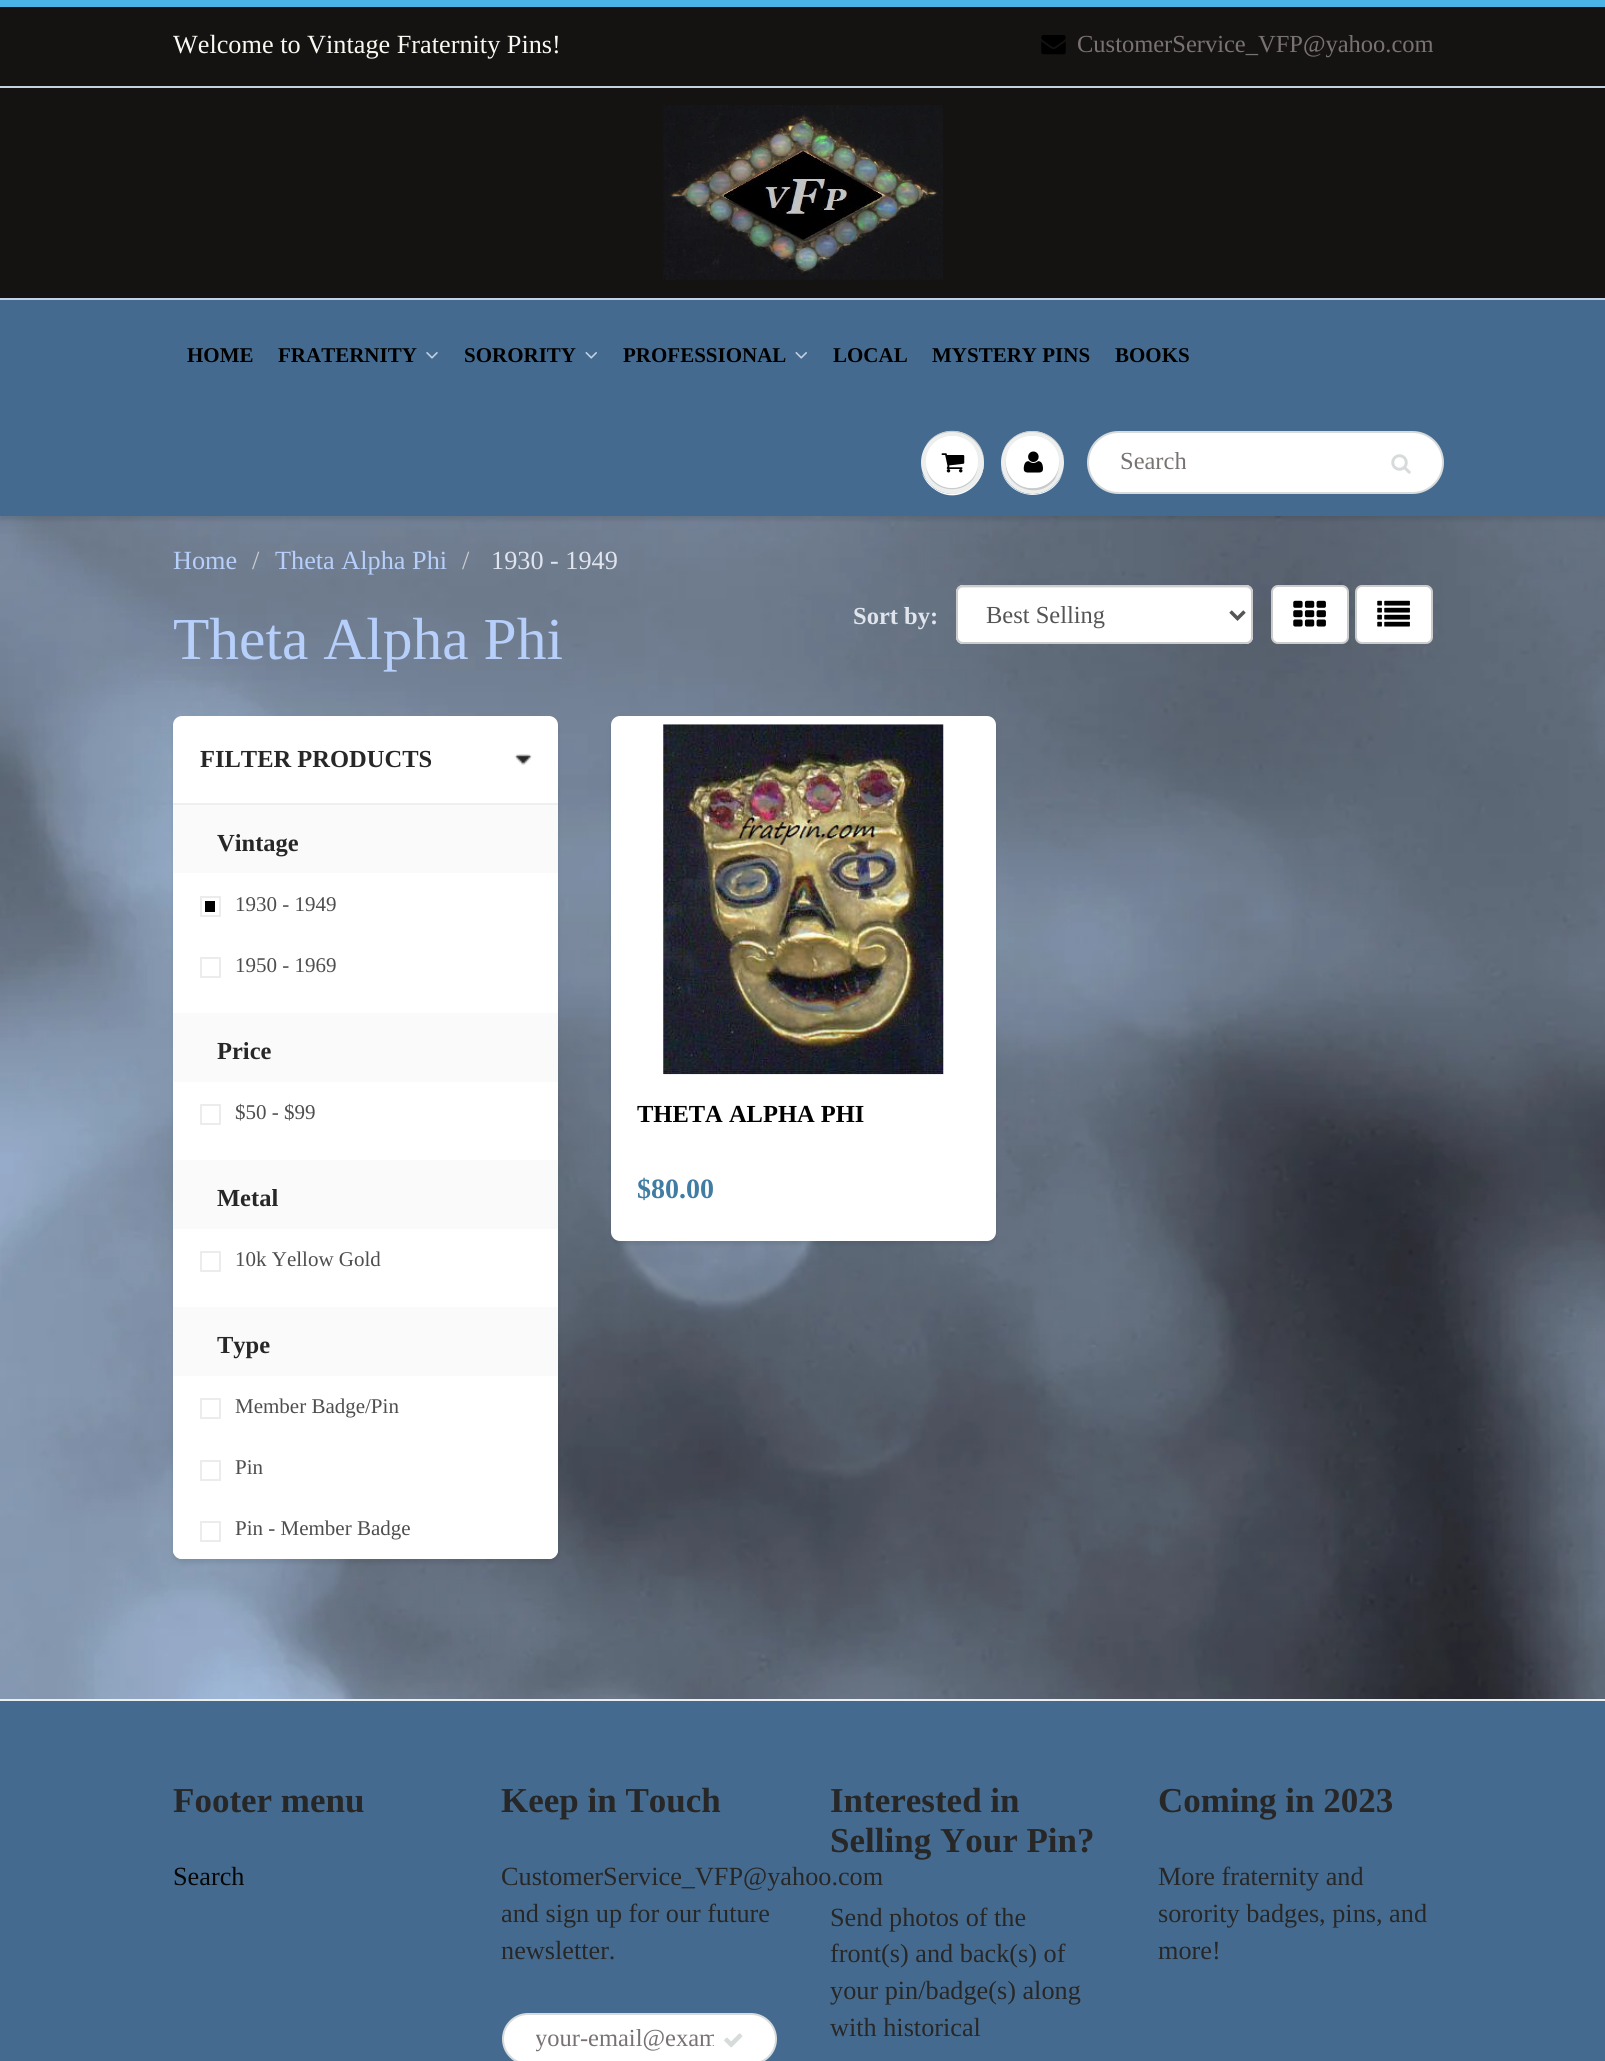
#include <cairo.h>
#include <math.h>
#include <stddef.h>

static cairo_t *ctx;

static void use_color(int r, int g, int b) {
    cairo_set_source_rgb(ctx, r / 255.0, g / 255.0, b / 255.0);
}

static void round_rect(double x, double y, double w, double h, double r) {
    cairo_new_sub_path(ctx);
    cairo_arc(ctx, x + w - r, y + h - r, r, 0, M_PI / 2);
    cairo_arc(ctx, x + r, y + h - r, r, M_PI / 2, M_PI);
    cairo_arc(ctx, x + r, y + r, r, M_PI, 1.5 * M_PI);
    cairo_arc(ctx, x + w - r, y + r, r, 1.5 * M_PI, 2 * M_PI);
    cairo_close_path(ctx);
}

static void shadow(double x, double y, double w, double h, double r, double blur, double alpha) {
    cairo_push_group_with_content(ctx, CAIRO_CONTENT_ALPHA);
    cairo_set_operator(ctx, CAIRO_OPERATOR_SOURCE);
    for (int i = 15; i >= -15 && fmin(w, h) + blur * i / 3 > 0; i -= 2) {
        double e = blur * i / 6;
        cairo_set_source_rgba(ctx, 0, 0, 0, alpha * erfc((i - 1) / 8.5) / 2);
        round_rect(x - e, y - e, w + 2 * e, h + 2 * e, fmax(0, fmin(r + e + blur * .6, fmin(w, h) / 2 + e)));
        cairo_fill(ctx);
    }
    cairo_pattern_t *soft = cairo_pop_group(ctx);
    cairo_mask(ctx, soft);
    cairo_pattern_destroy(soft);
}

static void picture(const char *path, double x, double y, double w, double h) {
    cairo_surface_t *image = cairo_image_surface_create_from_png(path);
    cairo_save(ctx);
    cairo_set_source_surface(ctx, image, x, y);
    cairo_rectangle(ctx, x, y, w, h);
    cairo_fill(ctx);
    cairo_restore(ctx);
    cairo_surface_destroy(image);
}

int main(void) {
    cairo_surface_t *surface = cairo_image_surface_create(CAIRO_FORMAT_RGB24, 1605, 2061);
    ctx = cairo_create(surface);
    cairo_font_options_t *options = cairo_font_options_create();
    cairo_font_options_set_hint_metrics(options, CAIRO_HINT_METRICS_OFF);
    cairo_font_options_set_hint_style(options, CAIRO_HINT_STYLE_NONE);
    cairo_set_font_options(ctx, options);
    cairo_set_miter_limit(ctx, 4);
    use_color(73, 180, 229);
    cairo_paint(ctx);
    use_color(21, 19, 18);
    cairo_rectangle(ctx, 0, 7, 1605, 79);
    cairo_fill(ctx);
    cairo_select_font_face(ctx, "Liberation Serif", CAIRO_FONT_SLANT_NORMAL, CAIRO_FONT_WEIGHT_NORMAL);
    cairo_set_font_size(ctx, 26.25);
    use_color(249, 249, 243);
    cairo_move_to(ctx, 173, 53);
    cairo_show_text(ctx, "Welcome to Vintage Fraternity Pins!");
    picture("img1.png", 1041, 35, 25, 20);
    cairo_set_font_size(ctx, 24.5);
    use_color(121, 114, 114);
    cairo_move_to(ctx, 1077, 52);
    cairo_show_text(ctx, "CustomerService_VFP@yahoo.com");
    use_color(21, 19, 18);
    cairo_rectangle(ctx, 0, 88, 1605, 210);
    cairo_fill(ctx);
    use_color(197, 208, 228);
    cairo_rectangle(ctx, 0, 86, 1605, 2);
    cairo_fill(ctx);
    picture("img2.png", 663, 105, 280, 175);
    picture("img8.png", 0, 516, 1605, 1183);
    use_color(11, 25, 28);
    shadow(0, 301, 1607, 219, 0, 2, 0.12);
    use_color(68, 107, 143);
    cairo_rectangle(ctx, 0, 300, 1605, 216);
    cairo_fill(ctx);
    use_color(197, 208, 228);
    cairo_rectangle(ctx, 0, 298, 1605, 2);
    cairo_fill(ctx);
    cairo_select_font_face(ctx, "Liberation Serif", CAIRO_FONT_SLANT_NORMAL, CAIRO_FONT_WEIGHT_BOLD);
    cairo_set_font_size(ctx, 21);
    use_color(0, 0, 0);
    cairo_move_to(ctx, 187, 362);
    cairo_show_text(ctx, "HOME");
    cairo_move_to(ctx, 278, 362);
    cairo_show_text(ctx, "FRATERNITY");
    picture("img3.png", 426, 352, 12, 7);
    cairo_move_to(ctx, 464, 362);
    cairo_show_text(ctx, "SORORITY");
    picture("img4.png", 585, 352, 12, 7);
    cairo_move_to(ctx, 623, 362);
    cairo_show_text(ctx, "PROFESSIONAL");
    picture("img4.png", 795, 352, 12, 7);
    cairo_move_to(ctx, 833, 362);
    cairo_show_text(ctx, "LOCAL");
    cairo_move_to(ctx, 932, 362);
    cairo_show_text(ctx, "MYSTERY PINS");
    cairo_move_to(ctx, 1115, 362);
    cairo_show_text(ctx, "BOOKS");
    use_color(255, 255, 255);
    cairo_new_path(ctx);
    cairo_move_to(ctx, 922, 473);
    cairo_curve_to(ctx, 924, 479, 928, 485, 934, 489);
    cairo_curve_to(ctx, 959, 508, 992, 481, 982, 453);
    cairo_curve_to(ctx, 991, 481, 958, 505, 934, 488);
    cairo_curve_to(ctx, 929, 484, 925, 479, 922, 473);
    cairo_close_path(ctx);
    cairo_fill(ctx);
    use_color(237, 239, 239);
    cairo_arc(ctx, 952.5, 462.5, 31.5, 0, 2 * M_PI);
    cairo_fill(ctx);
    use_color(201, 203, 203);
    cairo_new_path(ctx);
    cairo_move_to(ctx, 952, 432);
    cairo_curve_to(ctx, 969, 432, 984, 446, 984, 463);
    cairo_curve_to(ctx, 985, 431, 943, 419, 926, 445);
    cairo_curve_to(ctx, 932, 437, 942, 432, 952, 432);
    cairo_close_path(ctx);
    cairo_move_to(ctx, 978, 466);
    cairo_curve_to(ctx, 973, 495, 931, 495, 926, 466);
    cairo_curve_to(ctx, 929, 497, 975, 497, 978, 466);
    cairo_close_path(ctx);
    cairo_fill(ctx);
    use_color(255, 255, 255);
    cairo_arc(ctx, 952, 462, 26, 0, 2 * M_PI);
    cairo_fill(ctx);
    cairo_new_path(ctx);
    cairo_move_to(ctx, 952, 438);
    cairo_curve_to(ctx, 966, 438, 977, 449, 978, 463);
    cairo_curve_to(ctx, 978, 458, 977, 452, 974, 447);
    cairo_curve_to(ctx, 959, 426, 925, 437, 926, 463);
    cairo_curve_to(ctx, 927, 449, 938, 438, 952, 438);
    cairo_close_path(ctx);
    cairo_fill(ctx);
    picture("img5.png", 941, 453, 24, 20);
    cairo_new_path(ctx);
    cairo_move_to(ctx, 1001, 463);
    cairo_curve_to(ctx, 1000, 494, 1041, 507, 1059, 481);
    cairo_curve_to(ctx, 1062, 476, 1064, 469, 1064, 463);
    cairo_curve_to(ctx, 1064, 480, 1050, 494, 1032, 494);
    cairo_curve_to(ctx, 1015, 494, 1001, 480, 1001, 463);
    cairo_close_path(ctx);
    cairo_fill(ctx);
    use_color(237, 239, 239);
    cairo_arc(ctx, 1032.5, 462.5, 31.5, 0, 2 * M_PI);
    cairo_fill(ctx);
    use_color(201, 203, 203);
    cairo_new_path(ctx);
    cairo_move_to(ctx, 1032, 432);
    cairo_curve_to(ctx, 1050, 432, 1064, 446, 1064, 463);
    cairo_curve_to(ctx, 1065, 432, 1024, 419, 1006, 445);
    cairo_curve_to(ctx, 1003, 450, 1001, 457, 1001, 463);
    cairo_curve_to(ctx, 1001, 446, 1015, 432, 1032, 432);
    cairo_close_path(ctx);
    cairo_fill(ctx);
    cairo_new_path(ctx);
    cairo_move_to(ctx, 1006, 460);
    cairo_curve_to(ctx, 1002, 487, 1039, 502, 1055, 479);
    cairo_curve_to(ctx, 1058, 473, 1060, 466, 1059, 460);
    cairo_curve_to(ctx, 1061, 486, 1026, 499, 1011, 477);
    cairo_curve_to(ctx, 1007, 472, 1006, 466, 1006, 460);
    cairo_close_path(ctx);
    cairo_fill(ctx);
    use_color(255, 255, 255);
    round_rect(1006, 436, 53, 52, 26);
    cairo_fill(ctx);
    cairo_new_path(ctx);
    cairo_move_to(ctx, 1032, 438);
    cairo_curve_to(ctx, 1047, 438, 1058, 449, 1059, 463);
    cairo_curve_to(ctx, 1060, 437, 1025, 426, 1010, 447);
    cairo_curve_to(ctx, 1007, 452, 1006, 458, 1006, 463);
    cairo_curve_to(ctx, 1007, 449, 1018, 438, 1032, 438);
    cairo_close_path(ctx);
    cairo_fill(ctx);
    picture("img6.png", 1023, 451, 20, 22);
    round_rect(1088, 432, 355, 61, 30.5);
    cairo_fill_preserve(ctx);
    use_color(215, 219, 219);
    cairo_stroke(ctx);
    cairo_select_font_face(ctx, "Liberation Serif", CAIRO_FONT_SLANT_NORMAL, CAIRO_FONT_WEIGHT_NORMAL);
    cairo_set_font_size(ctx, 24.5);
    use_color(121, 114, 114);
    cairo_move_to(ctx, 1120, 469);
    cairo_show_text(ctx, "Search");
    picture("img7.png", 1391, 454, 20, 20);
    cairo_set_font_size(ctx, 26.25);
    use_color(183, 207, 251);
    cairo_move_to(ctx, 173, 569);
    cairo_show_text(ctx, "Home");
    use_color(204, 204, 204);
    cairo_move_to(ctx, 252, 569);
    cairo_show_text(ctx, "/");
    use_color(183, 207, 251);
    cairo_move_to(ctx, 275, 569);
    cairo_show_text(ctx, "Theta Alpha Phi");
    use_color(204, 204, 204);
    cairo_move_to(ctx, 462, 569);
    cairo_show_text(ctx, "/");
    use_color(224, 228, 237);
    cairo_move_to(ctx, 491, 569);
    cairo_show_text(ctx, "1930 - 1949");
    use_color(11, 25, 28);
    shadow(173, 719, 385, 844, 9, 2, 0.1);
    use_color(255, 255, 255);
    round_rect(173, 716, 385, 843, 9);
    cairo_fill(ctx);
    use_color(239, 239, 239);
    cairo_rectangle(ctx, 173, 803, 385, 2);
    cairo_fill(ctx);
    picture("img9.png", 514, 754, 18, 11);
    cairo_select_font_face(ctx, "Liberation Serif", CAIRO_FONT_SLANT_NORMAL, CAIRO_FONT_WEIGHT_BOLD);
    cairo_set_font_size(ctx, 24.5);
    use_color(40, 39, 39);
    cairo_move_to(ctx, 200, 767);
    cairo_show_text(ctx, "FILTER PRODUCTS");
    use_color(250, 250, 250);
    cairo_rectangle(ctx, 173, 805, 385, 68);
    cairo_fill(ctx);
    use_color(40, 39, 39);
    cairo_move_to(ctx, 217, 851);
    cairo_show_text(ctx, "Vintage");
    cairo_rectangle(ctx, 201, 897, 19, 19);
    use_color(236, 236, 236);
    cairo_stroke(ctx);
    cairo_select_font_face(ctx, "Liberation Serif", CAIRO_FONT_SLANT_NORMAL, CAIRO_FONT_WEIGHT_NORMAL);
    cairo_set_font_size(ctx, 21);
    use_color(78, 78, 78);
    cairo_move_to(ctx, 235, 911);
    cairo_show_text(ctx, "1930 - 1949");
    use_color(0, 0, 0);
    cairo_rectangle(ctx, 205, 901, 10, 11);
    cairo_fill(ctx);
    cairo_rectangle(ctx, 201, 958, 19, 19);
    use_color(236, 236, 236);
    cairo_stroke(ctx);
    use_color(78, 78, 78);
    cairo_move_to(ctx, 235, 972);
    cairo_show_text(ctx, "1950 - 1969");
    use_color(250, 250, 250);
    cairo_rectangle(ctx, 173, 1013, 385, 69);
    cairo_fill(ctx);
    cairo_select_font_face(ctx, "Liberation Serif", CAIRO_FONT_SLANT_NORMAL, CAIRO_FONT_WEIGHT_BOLD);
    cairo_set_font_size(ctx, 24.5);
    use_color(40, 39, 39);
    cairo_move_to(ctx, 217, 1059);
    cairo_show_text(ctx, "Price");
    cairo_rectangle(ctx, 201, 1105, 19, 19);
    use_color(236, 236, 236);
    cairo_stroke(ctx);
    cairo_select_font_face(ctx, "Liberation Serif", CAIRO_FONT_SLANT_NORMAL, CAIRO_FONT_WEIGHT_NORMAL);
    cairo_set_font_size(ctx, 21);
    use_color(78, 78, 78);
    cairo_move_to(ctx, 235, 1119);
    cairo_show_text(ctx, "$50 - $99");
    use_color(250, 250, 250);
    cairo_rectangle(ctx, 173, 1160, 385, 69);
    cairo_fill(ctx);
    cairo_select_font_face(ctx, "Liberation Serif", CAIRO_FONT_SLANT_NORMAL, CAIRO_FONT_WEIGHT_BOLD);
    cairo_set_font_size(ctx, 24.5);
    use_color(40, 39, 39);
    cairo_move_to(ctx, 217, 1206);
    cairo_show_text(ctx, "Metal");
    cairo_rectangle(ctx, 201, 1252, 19, 19);
    use_color(236, 236, 236);
    cairo_stroke(ctx);
    cairo_select_font_face(ctx, "Liberation Serif", CAIRO_FONT_SLANT_NORMAL, CAIRO_FONT_WEIGHT_NORMAL);
    cairo_set_font_size(ctx, 21);
    use_color(78, 78, 78);
    cairo_move_to(ctx, 235, 1266);
    cairo_show_text(ctx, "10k Yellow Gold");
    use_color(250, 250, 250);
    cairo_rectangle(ctx, 173, 1307, 385, 69);
    cairo_fill(ctx);
    cairo_select_font_face(ctx, "Liberation Serif", CAIRO_FONT_SLANT_NORMAL, CAIRO_FONT_WEIGHT_BOLD);
    cairo_set_font_size(ctx, 24.5);
    use_color(40, 39, 39);
    cairo_move_to(ctx, 217, 1353);
    cairo_show_text(ctx, "Type");
    cairo_rectangle(ctx, 201, 1399, 19, 19);
    use_color(236, 236, 236);
    cairo_stroke(ctx);
    cairo_select_font_face(ctx, "Liberation Serif", CAIRO_FONT_SLANT_NORMAL, CAIRO_FONT_WEIGHT_NORMAL);
    cairo_set_font_size(ctx, 21);
    use_color(78, 78, 78);
    cairo_move_to(ctx, 235, 1413);
    cairo_show_text(ctx, "Member Badge/Pin");
    cairo_rectangle(ctx, 201, 1461, 19, 19);
    use_color(236, 236, 236);
    cairo_stroke(ctx);
    use_color(78, 78, 78);
    cairo_move_to(ctx, 235, 1474);
    cairo_show_text(ctx, "Pin");
    use_color(255, 255, 255);
    cairo_new_path(ctx);
    cairo_move_to(ctx, 173, 1498);
    cairo_line_to(ctx, 558, 1498);
    cairo_line_to(ctx, 558, 1550);
    cairo_curve_to(ctx, 558, 1555, 554, 1559, 549, 1559);
    cairo_line_to(ctx, 182, 1559);
    cairo_curve_to(ctx, 177, 1559, 173, 1555, 173, 1550);
    cairo_close_path(ctx);
    cairo_fill(ctx);
    cairo_rectangle(ctx, 201, 1522, 19, 19);
    use_color(236, 236, 236);
    cairo_stroke(ctx);
    use_color(78, 78, 78);
    cairo_move_to(ctx, 235, 1535);
    cairo_show_text(ctx, "Pin - Member Badge");
    cairo_select_font_face(ctx, "Liberation Serif", CAIRO_FONT_SLANT_NORMAL, CAIRO_FONT_WEIGHT_BOLD);
    cairo_set_font_size(ctx, 24.5);
    use_color(224, 228, 237);
    cairo_move_to(ctx, 853, 624);
    cairo_show_text(ctx, "Sort by:");
    use_color(255, 255, 255);
    round_rect(956, 585, 297, 59, 7);
    cairo_fill(ctx);
    use_color(236, 236, 236);
    cairo_new_path(ctx);
    cairo_move_to(ctx, 962, 588);
    cairo_line_to(ctx, 1246, 588);
    cairo_curve_to(ctx, 1249, 588, 1251, 590, 1251, 593);
    cairo_curve_to(ctx, 1251, 590, 1250, 586, 1246, 586);
    cairo_line_to(ctx, 961, 586);
    cairo_curve_to(ctx, 957, 587, 957, 590, 957, 593);
    cairo_curve_to(ctx, 957, 590, 960, 588, 962, 588);
    cairo_close_path(ctx);
    cairo_fill(ctx);
    round_rect(957, 586, 295, 57, 6);
    use_color(204, 204, 204);
    cairo_stroke(ctx);
    cairo_new_path(ctx);
    cairo_move_to(ctx, 1230.5, 611.5);
    cairo_line_to(ctx, 1237.5, 618.5);
    cairo_line_to(ctx, 1244.5, 611.5);
    use_color(85, 85, 85);
    cairo_set_line_width(ctx, 3.5);
    cairo_stroke(ctx);
    cairo_select_font_face(ctx, "Liberation Serif", CAIRO_FONT_SLANT_NORMAL, CAIRO_FONT_WEIGHT_NORMAL);
    cairo_move_to(ctx, 986, 623);
    cairo_show_text(ctx, "Best Selling");
    use_color(255, 255, 255);
    round_rect(1272, 586, 76, 57, 6);
    cairo_fill_preserve(ctx);
    use_color(204, 204, 204);
    cairo_set_line_width(ctx, 2);
    cairo_stroke(ctx);
    picture("img10.png", 1293, 600, 33, 27);
    use_color(255, 255, 255);
    round_rect(1356, 586, 76, 57, 6);
    cairo_fill_preserve(ctx);
    use_color(204, 204, 204);
    cairo_stroke(ctx);
    picture("img11.png", 1377, 600, 33, 27);
    use_color(11, 25, 28);
    shadow(611, 719, 385, 525, 9, 2, 0.1);
    use_color(255, 255, 255);
    round_rect(615.5, 720.5, 376, 516, 4.5);
    cairo_fill_preserve(ctx);
    cairo_set_line_width(ctx, 9);
    cairo_stroke(ctx);
    picture("img12.png", 663, 724, 281, 351);
    cairo_select_font_face(ctx, "Liberation Serif", CAIRO_FONT_SLANT_NORMAL, CAIRO_FONT_WEIGHT_BOLD);
    use_color(0, 0, 0);
    cairo_move_to(ctx, 637, 1122);
    cairo_show_text(ctx, "THETA ALPHA PHI");
    cairo_set_font_size(ctx, 28);
    use_color(65, 124, 163);
    cairo_move_to(ctx, 637, 1198);
    cairo_show_text(ctx, "$80.00");
    cairo_select_font_face(ctx, "Liberation Serif", CAIRO_FONT_SLANT_NORMAL, CAIRO_FONT_WEIGHT_NORMAL);
    cairo_set_font_size(ctx, 59.5);
    use_color(183, 207, 251);
    cairo_move_to(ctx, 173, 659);
    cairo_show_text(ctx, "Theta Alpha Phi");
    use_color(68, 107, 143);
    cairo_rectangle(ctx, 0, 1701, 1605, 360);
    cairo_fill(ctx);
    use_color(236, 239, 239);
    cairo_rectangle(ctx, 0, 1699, 1605, 2);
    cairo_fill(ctx);
    cairo_select_font_face(ctx, "Liberation Serif", CAIRO_FONT_SLANT_NORMAL, CAIRO_FONT_WEIGHT_BOLD);
    cairo_set_font_size(ctx, 35);
    use_color(40, 39, 39);
    cairo_move_to(ctx, 173, 1812);
    cairo_show_text(ctx, "Footer menu");
    cairo_select_font_face(ctx, "Liberation Serif", CAIRO_FONT_SLANT_NORMAL, CAIRO_FONT_WEIGHT_NORMAL);
    cairo_set_font_size(ctx, 26.25);
    use_color(6, 6, 6);
    cairo_move_to(ctx, 173, 1885);
    cairo_show_text(ctx, "Search");
    cairo_select_font_face(ctx, "Liberation Serif", CAIRO_FONT_SLANT_NORMAL, CAIRO_FONT_WEIGHT_BOLD);
    cairo_set_font_size(ctx, 35);
    use_color(40, 39, 39);
    cairo_move_to(ctx, 501, 1812);
    cairo_show_text(ctx, "Keep in Touch");
    cairo_select_font_face(ctx, "Liberation Serif", CAIRO_FONT_SLANT_NORMAL, CAIRO_FONT_WEIGHT_NORMAL);
    cairo_set_font_size(ctx, 26.25);
    cairo_move_to(ctx, 501, 1885);
    cairo_show_text(ctx, "CustomerService_VFP@yahoo.com");
    cairo_move_to(ctx, 501, 1922);
    cairo_show_text(ctx, "and sign up for our future");
    cairo_move_to(ctx, 501, 1959);
    cairo_show_text(ctx, "newsletter.");
    use_color(255, 255, 255);
    round_rect(503, 2014, 273, 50, 25);
    cairo_fill_preserve(ctx);
    use_color(215, 219, 219);
    cairo_set_line_width(ctx, 2);
    cairo_stroke(ctx);
    cairo_save(ctx);
    cairo_rectangle(ctx, 536, 2025, 178, 28);
    cairo_clip(ctx);
    cairo_set_font_size(ctx, 24.5);
    use_color(121, 114, 114);
    cairo_move_to(ctx, 535, 2046);
    cairo_show_text(ctx, "your-email@exam");
    cairo_restore(ctx);
    picture("img13.png", 724, 2033, 19, 15);
    cairo_select_font_face(ctx, "Liberation Serif", CAIRO_FONT_SLANT_NORMAL, CAIRO_FONT_WEIGHT_BOLD);
    cairo_set_font_size(ctx, 35);
    use_color(40, 39, 39);
    cairo_move_to(ctx, 830, 1812);
    cairo_show_text(ctx, "Interested in");
    cairo_move_to(ctx, 830, 1852);
    cairo_show_text(ctx, "Selling Your Pin?");
    cairo_select_font_face(ctx, "Liberation Serif", CAIRO_FONT_SLANT_NORMAL, CAIRO_FONT_WEIGHT_NORMAL);
    cairo_set_font_size(ctx, 26.25);
    cairo_move_to(ctx, 830, 1926);
    cairo_show_text(ctx, "Send photos of the");
    cairo_move_to(ctx, 830, 1962);
    cairo_show_text(ctx, "front(s) and back(s) of");
    cairo_move_to(ctx, 830, 1999);
    cairo_show_text(ctx, "your pin/badge(s) along");
    cairo_move_to(ctx, 830, 2036);
    cairo_show_text(ctx, "with historical");
    cairo_select_font_face(ctx, "Liberation Serif", CAIRO_FONT_SLANT_NORMAL, CAIRO_FONT_WEIGHT_BOLD);
    cairo_set_font_size(ctx, 35);
    cairo_move_to(ctx, 1158, 1812);
    cairo_show_text(ctx, "Coming in 2023");
    cairo_select_font_face(ctx, "Liberation Serif", CAIRO_FONT_SLANT_NORMAL, CAIRO_FONT_WEIGHT_NORMAL);
    cairo_set_font_size(ctx, 26.25);
    cairo_move_to(ctx, 1158, 1885);
    cairo_show_text(ctx, "More fraternity and");
    cairo_move_to(ctx, 1158, 1922);
    cairo_show_text(ctx, "sorority badges, pins, and");
    cairo_move_to(ctx, 1158, 1959);
    cairo_show_text(ctx, "more!");
    cairo_surface_write_to_png(surface, "result.png");
    cairo_font_options_destroy(options);
    cairo_destroy(ctx);
    cairo_surface_destroy(surface);
    return 0;
}
